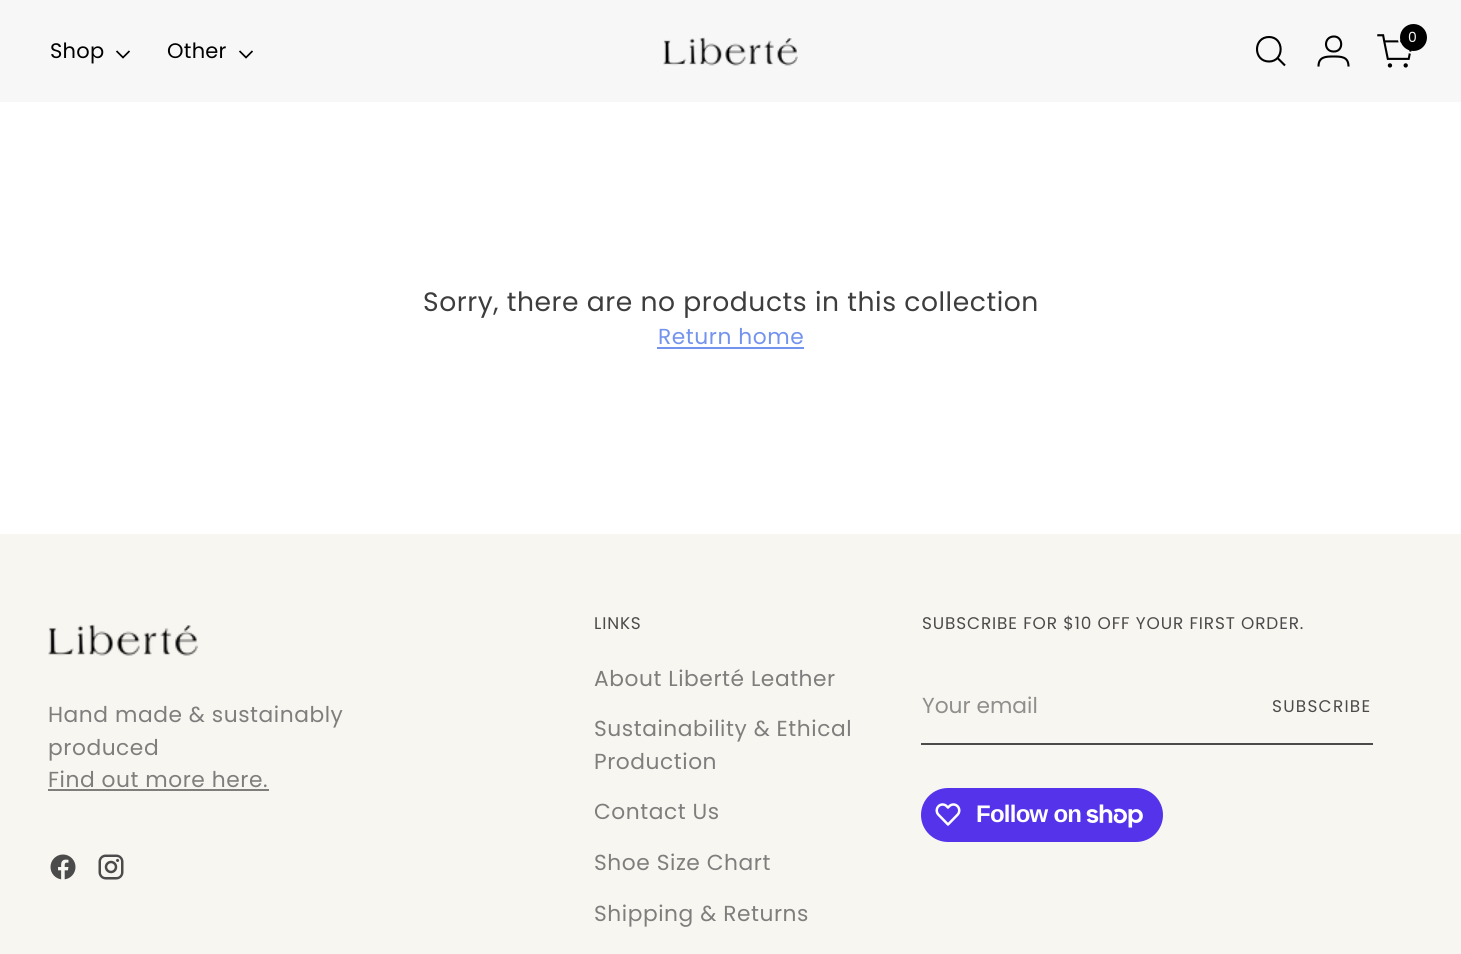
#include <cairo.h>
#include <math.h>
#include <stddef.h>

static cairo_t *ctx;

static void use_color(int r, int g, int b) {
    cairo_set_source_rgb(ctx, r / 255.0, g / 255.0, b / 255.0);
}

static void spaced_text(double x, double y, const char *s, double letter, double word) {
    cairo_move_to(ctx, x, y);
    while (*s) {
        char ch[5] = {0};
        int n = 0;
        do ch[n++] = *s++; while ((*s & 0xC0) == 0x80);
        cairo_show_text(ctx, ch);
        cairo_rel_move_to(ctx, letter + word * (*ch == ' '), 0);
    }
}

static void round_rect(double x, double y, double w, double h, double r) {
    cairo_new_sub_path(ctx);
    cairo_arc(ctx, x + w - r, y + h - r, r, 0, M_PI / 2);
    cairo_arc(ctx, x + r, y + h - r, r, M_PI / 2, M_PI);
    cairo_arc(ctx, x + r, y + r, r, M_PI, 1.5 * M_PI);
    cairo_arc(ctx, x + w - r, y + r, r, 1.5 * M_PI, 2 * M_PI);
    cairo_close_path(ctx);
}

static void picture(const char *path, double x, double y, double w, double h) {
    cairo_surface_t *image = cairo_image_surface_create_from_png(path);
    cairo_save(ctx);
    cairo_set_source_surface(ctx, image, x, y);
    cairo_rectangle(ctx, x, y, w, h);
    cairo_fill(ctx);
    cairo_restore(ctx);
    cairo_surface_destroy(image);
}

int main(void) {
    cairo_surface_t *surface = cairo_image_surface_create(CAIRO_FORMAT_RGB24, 1461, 954);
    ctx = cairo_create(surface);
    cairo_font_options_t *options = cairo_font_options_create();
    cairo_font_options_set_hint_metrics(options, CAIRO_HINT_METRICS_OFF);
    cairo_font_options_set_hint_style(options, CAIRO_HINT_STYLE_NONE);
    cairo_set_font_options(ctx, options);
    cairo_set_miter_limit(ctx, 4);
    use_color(255, 255, 255);
    cairo_paint(ctx);
    use_color(247, 247, 247);
    cairo_rectangle(ctx, 0, 0, 1461, 102);
    cairo_fill(ctx);
    cairo_select_font_face(ctx, "Poppins", CAIRO_FONT_SLANT_NORMAL, CAIRO_FONT_WEIGHT_NORMAL);
    cairo_set_font_size(ctx, 21);
    use_color(0, 0, 0);
    spaced_text(50, 58, "Shop", 0.25, 0);
    cairo_new_path(ctx);
    cairo_move_to(ctx, 116.5, 51);
    cairo_line_to(ctx, 123, 57.5);
    cairo_line_to(ctx, 129.5, 51);
    cairo_set_line_width(ctx, 1.7);
    cairo_stroke(ctx);
    spaced_text(167, 58, "Other", 0.25, 0);
    cairo_new_path(ctx);
    cairo_move_to(ctx, 239.5, 51);
    cairo_line_to(ctx, 246, 57.5);
    cairo_line_to(ctx, 252.5, 51);
    cairo_stroke(ctx);
    picture("img1.png", 663, 37, 135, 29);
    cairo_new_path(ctx);
    cairo_move_to(ctx, 1269, 61.5);
    cairo_curve_to(ctx, 1284.5, 61.5, 1284.5, 37, 1269, 37);
    cairo_curve_to(ctx, 1253, 37, 1253, 61.5, 1269, 61.5);
    cairo_close_path(ctx);
    cairo_set_line_width(ctx, 2.1);
    cairo_set_line_cap(ctx, CAIRO_LINE_CAP_ROUND);
    cairo_stroke(ctx);
    cairo_new_path(ctx);
    cairo_move_to(ctx, 1277.5, 58);
    cairo_line_to(ctx, 1285, 65.5);
    cairo_set_line_cap(ctx, CAIRO_LINE_CAP_BUTT);
    cairo_stroke(ctx);
    cairo_new_path(ctx);
    cairo_move_to(ctx, 1333.5, 51.5);
    cairo_curve_to(ctx, 1344, 52, 1343.5, 36, 1333.5, 36.5);
    cairo_curve_to(ctx, 1323.5, 37, 1323.5, 51.5, 1333.5, 51.5);
    cairo_close_path(ctx);
    cairo_move_to(ctx, 1318.5, 66.5);
    cairo_curve_to(ctx, 1318.5, 56.5, 1326, 56.5, 1333.5, 56.5);
    cairo_curve_to(ctx, 1341, 56.5, 1348.5, 56.5, 1348.5, 66.5);
    cairo_stroke(ctx);
    picture("img2.png", 1377, 34, 35, 34);
    round_rect(1399, 24, 30, 29, 14.5);
    use_color(247, 247, 247);
    cairo_set_line_width(ctx, 2);
    cairo_stroke(ctx);
    use_color(0, 0, 0);
    cairo_arc(ctx, 1413.5, 37.5, 13.5, 0, 2 * M_PI);
    cairo_fill(ctx);
    cairo_set_font_size(ctx, 14);
    use_color(247, 247, 247);
    spaced_text(1408, 42, "0", 0.55, 0);
    cairo_set_font_size(ctx, 26.6);
    use_color(61, 61, 61);
    spaced_text(423, 311, "Sorry, there are no products in this collection", 0.55, 0);
    cairo_set_font_size(ctx, 21.75);
    use_color(116, 147, 238);
    spaced_text(658, 344, "Return home", 0.55, 0);
    cairo_rectangle(ctx, 657, 347, 147, 2);
    cairo_fill(ctx);
    use_color(248, 246, 241);
    cairo_rectangle(ctx, 0, 534, 1461, 420);
    cairo_fill(ctx);
    picture("img3.png", 48, 624, 150, 32);
    use_color(127, 126, 125);
    spaced_text(48, 722, "Hand made & sustainably", 0.55, 0);
    spaced_text(48, 755, "produced", 0.55, 0);
    spaced_text(48, 787, "Find out more here.", 0.55, 0);
    cairo_rectangle(ctx, 48, 789, 221, 2);
    cairo_fill(ctx);
    picture("img4.png", 50, 854, 26, 26);
    picture("img5.png", 98, 854, 26, 26);
    cairo_set_font_size(ctx, 16.9);
    use_color(75, 75, 75);
    spaced_text(594, 629, "LINKS", 0.85, 0);
    cairo_set_font_size(ctx, 21.75);
    use_color(127, 126, 125);
    spaced_text(594, 686, "About Liberté Leather", 0.55, 0);
    spaced_text(594, 736, "Sustainability & Ethical", 0.55, 0);
    spaced_text(594, 769, "Production", 0.55, 0);
    spaced_text(594, 819, "Contact Us", 0.55, 0);
    spaced_text(594, 870, "Shoe Size Chart", 0.55, 0);
    spaced_text(594, 921, "Shipping & Returns", 0.55, 0);
    cairo_set_font_size(ctx, 16.9);
    use_color(75, 75, 75);
    spaced_text(922, 629, "SUBSCRIBE FOR $10 OFF YOUR FIRST ORDER.", 0.85, 0);
    cairo_rectangle(ctx, 921, 743, 452, 2);
    cairo_fill(ctx);
    cairo_set_font_size(ctx, 21.75);
    use_color(144, 143, 141);
    cairo_move_to(ctx, 922, 713);
    cairo_show_text(ctx, "Your email");
    cairo_set_font_size(ctx, 16.9);
    use_color(75, 75, 75);
    spaced_text(1272, 712, "SUBSCRIBE", 1.25, 0);
    use_color(84, 51, 235);
    round_rect(921, 788, 242, 54, 27);
    cairo_fill(ctx);
    picture("img6.png", 935, 803, 26, 23);
    cairo_select_font_face(ctx, "Liberation Sans", CAIRO_FONT_SLANT_NORMAL, CAIRO_FONT_WEIGHT_BOLD);
    cairo_set_font_size(ctx, 24);
    use_color(255, 255, 255);
    spaced_text(976, 822, "Follow on", -0.75, 0);
    picture("img7.png", 1086, 804, 57, 24);
    cairo_surface_write_to_png(surface, "result.png");
    cairo_font_options_destroy(options);
    cairo_destroy(ctx);
    cairo_surface_destroy(surface);
    return 0;
}
